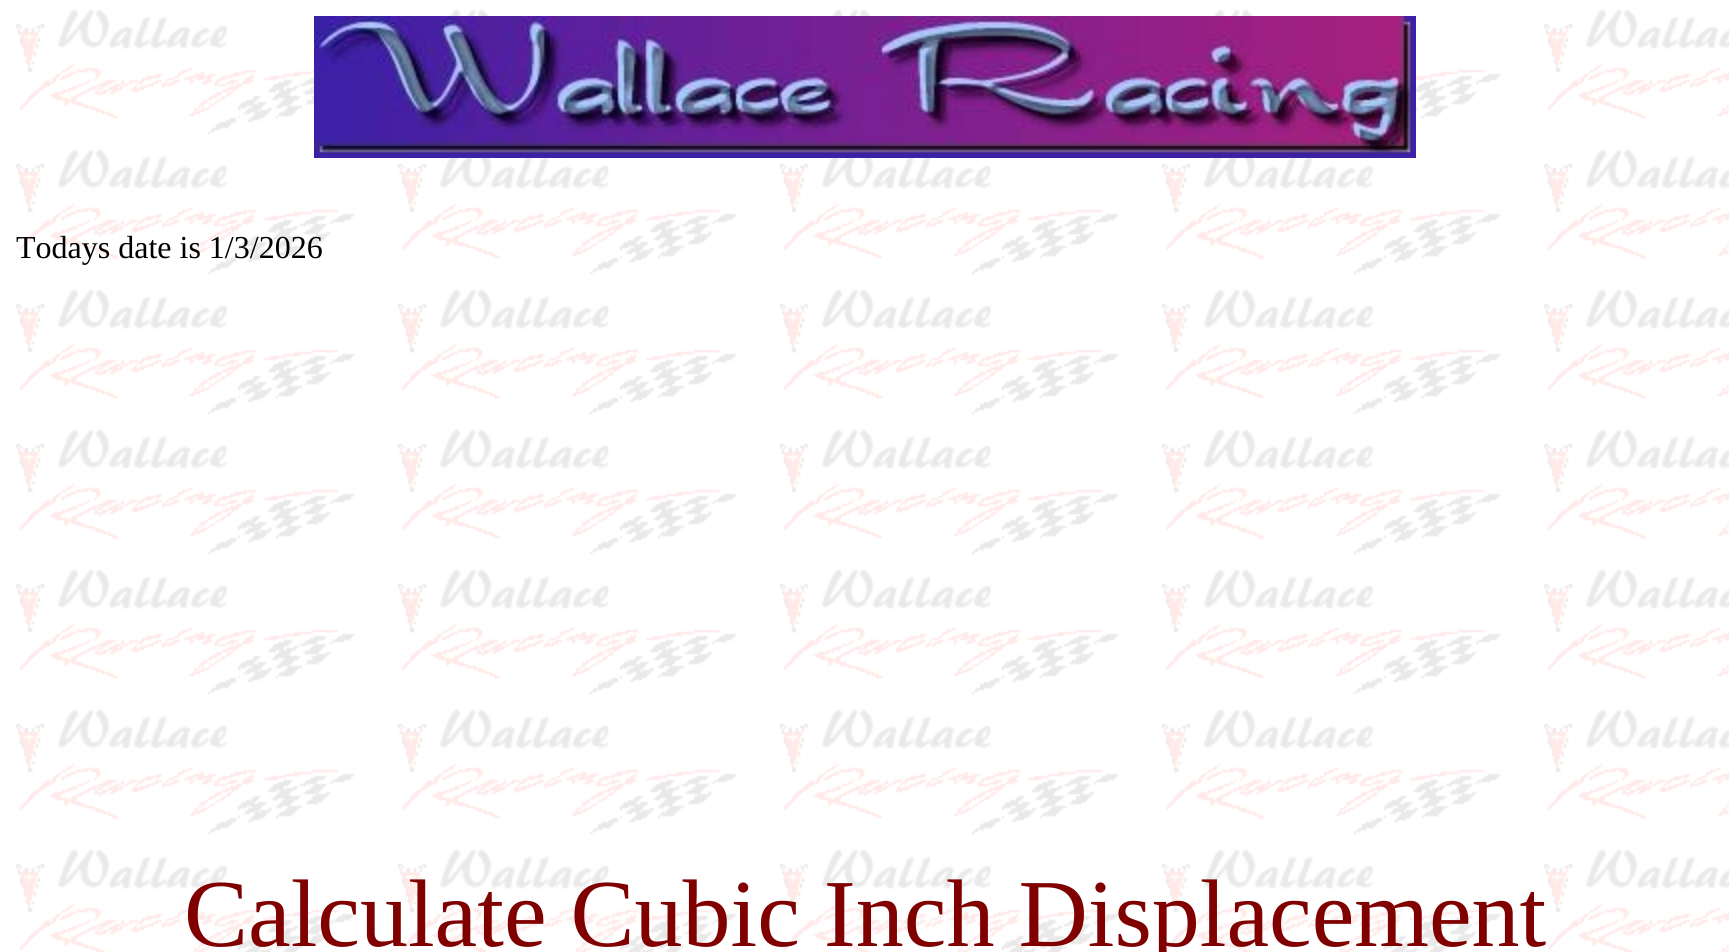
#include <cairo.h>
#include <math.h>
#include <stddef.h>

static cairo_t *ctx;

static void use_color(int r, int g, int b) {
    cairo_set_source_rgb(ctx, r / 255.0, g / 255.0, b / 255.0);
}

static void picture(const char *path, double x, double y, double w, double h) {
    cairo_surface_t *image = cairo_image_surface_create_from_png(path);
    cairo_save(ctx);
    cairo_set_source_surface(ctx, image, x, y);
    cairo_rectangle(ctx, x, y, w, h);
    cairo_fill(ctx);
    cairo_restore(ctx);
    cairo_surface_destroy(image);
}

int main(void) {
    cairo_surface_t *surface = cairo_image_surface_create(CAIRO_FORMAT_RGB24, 1729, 952);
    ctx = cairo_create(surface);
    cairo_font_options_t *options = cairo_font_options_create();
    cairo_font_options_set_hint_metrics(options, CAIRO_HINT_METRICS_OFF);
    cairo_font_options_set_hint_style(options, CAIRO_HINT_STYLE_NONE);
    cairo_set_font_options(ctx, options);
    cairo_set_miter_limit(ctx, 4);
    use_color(255, 255, 255);
    cairo_paint(ctx);
    picture("img1.png", 15, 9, 1714, 943);
    picture("img2.png", 314, 16, 1102, 142);
    cairo_select_font_face(ctx, "Liberation Serif", CAIRO_FONT_SLANT_NORMAL, CAIRO_FONT_WEIGHT_NORMAL);
    cairo_set_font_size(ctx, 32);
    use_color(0, 0, 0);
    cairo_move_to(ctx, 16, 258);
    cairo_show_text(ctx, "Todays date is 1/3/2026");
    cairo_set_font_size(ctx, 96);
    use_color(128, 0, 0);
    cairo_move_to(ctx, 184, 946);
    cairo_show_text(ctx, "Calculate Cubic Inch Displacement");
    cairo_surface_write_to_png(surface, "result.png");
    cairo_font_options_destroy(options);
    cairo_destroy(ctx);
    cairo_surface_destroy(surface);
    return 0;
}
